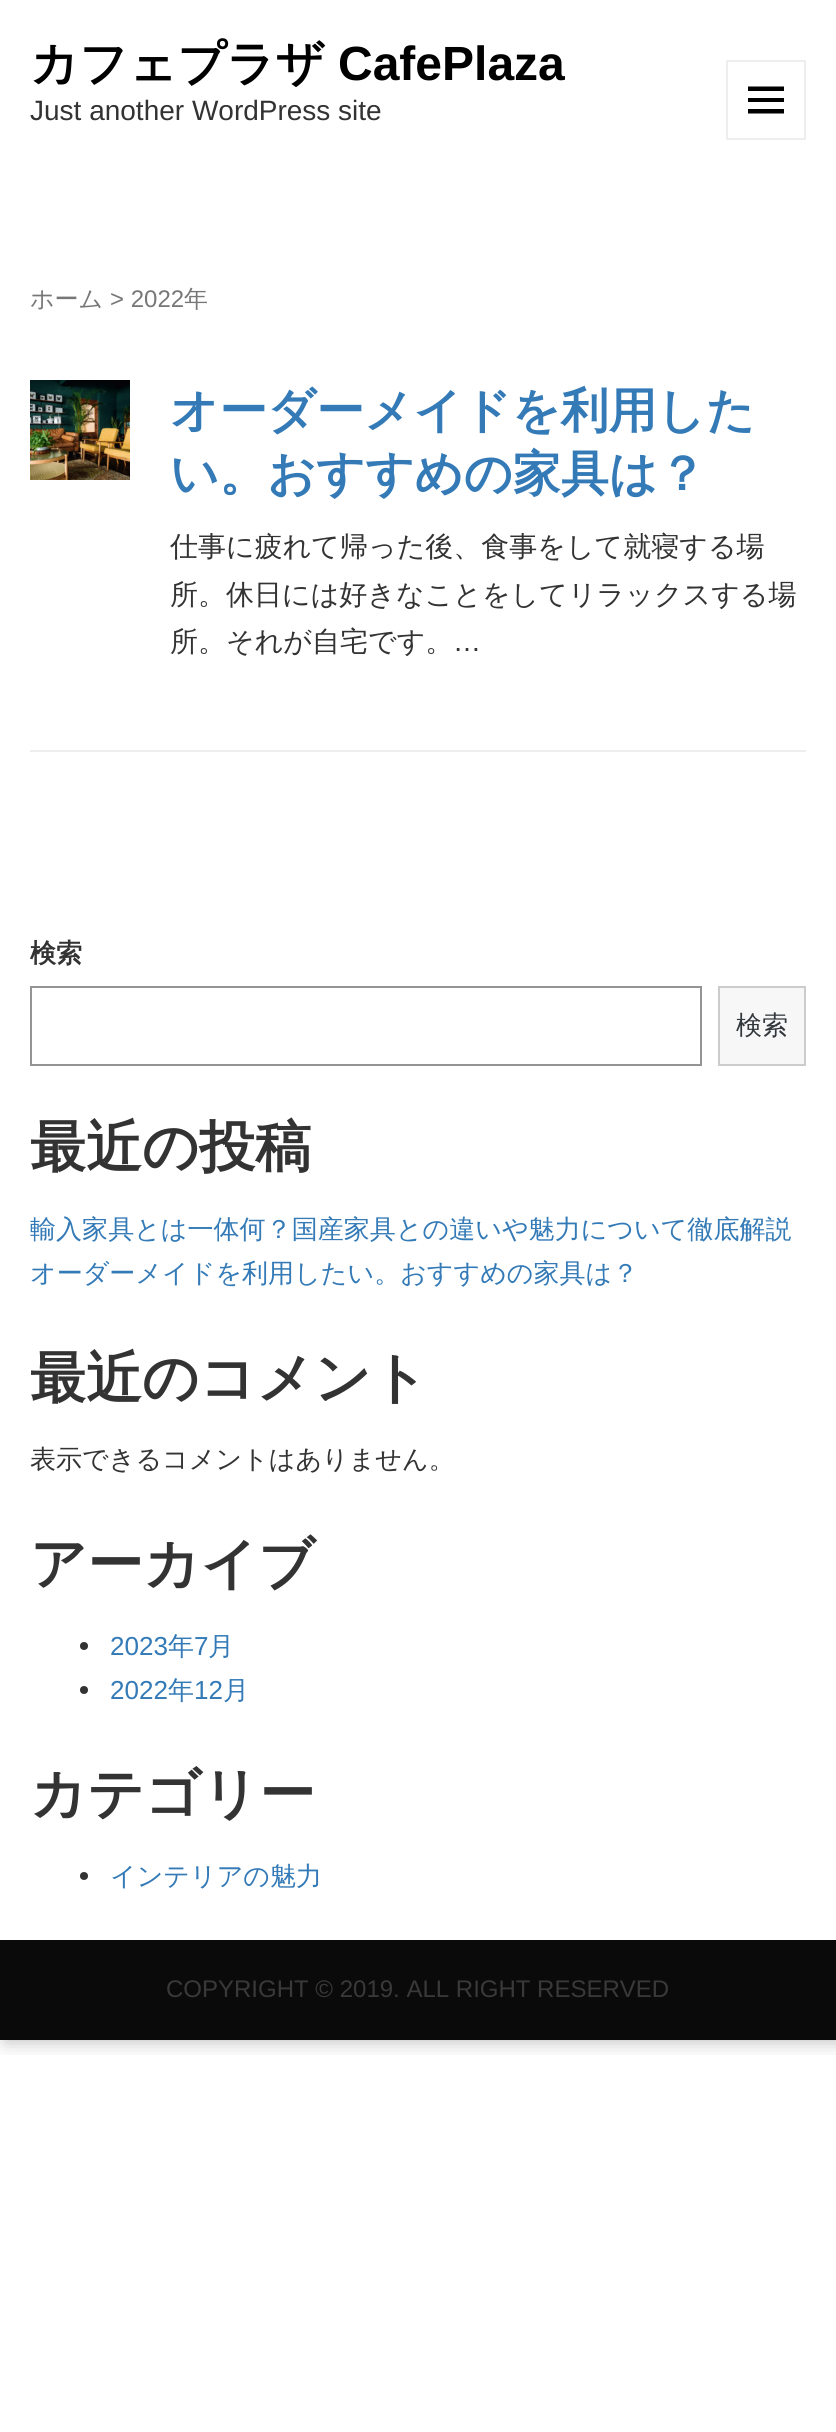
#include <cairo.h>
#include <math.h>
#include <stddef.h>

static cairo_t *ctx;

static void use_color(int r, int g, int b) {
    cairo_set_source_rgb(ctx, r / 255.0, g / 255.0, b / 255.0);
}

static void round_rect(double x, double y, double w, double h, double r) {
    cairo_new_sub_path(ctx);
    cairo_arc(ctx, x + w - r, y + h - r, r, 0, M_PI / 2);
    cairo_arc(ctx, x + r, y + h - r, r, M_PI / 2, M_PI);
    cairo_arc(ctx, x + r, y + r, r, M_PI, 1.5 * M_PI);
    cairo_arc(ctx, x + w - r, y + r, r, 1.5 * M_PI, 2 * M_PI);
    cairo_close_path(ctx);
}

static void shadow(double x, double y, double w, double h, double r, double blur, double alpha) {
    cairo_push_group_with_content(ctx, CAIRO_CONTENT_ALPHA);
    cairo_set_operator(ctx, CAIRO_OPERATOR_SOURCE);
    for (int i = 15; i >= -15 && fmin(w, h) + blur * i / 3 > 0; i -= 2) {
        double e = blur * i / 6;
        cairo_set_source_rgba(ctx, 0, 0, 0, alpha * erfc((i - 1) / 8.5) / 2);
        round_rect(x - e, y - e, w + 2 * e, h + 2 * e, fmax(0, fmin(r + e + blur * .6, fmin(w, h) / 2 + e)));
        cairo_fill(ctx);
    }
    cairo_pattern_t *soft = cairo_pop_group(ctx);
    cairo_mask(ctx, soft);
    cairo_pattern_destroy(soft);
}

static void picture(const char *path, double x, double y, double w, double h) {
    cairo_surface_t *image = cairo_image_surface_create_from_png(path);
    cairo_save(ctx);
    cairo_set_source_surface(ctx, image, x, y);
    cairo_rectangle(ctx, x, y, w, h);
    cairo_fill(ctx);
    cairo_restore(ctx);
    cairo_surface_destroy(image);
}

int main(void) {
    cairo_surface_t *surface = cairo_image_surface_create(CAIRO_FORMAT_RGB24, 836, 2432);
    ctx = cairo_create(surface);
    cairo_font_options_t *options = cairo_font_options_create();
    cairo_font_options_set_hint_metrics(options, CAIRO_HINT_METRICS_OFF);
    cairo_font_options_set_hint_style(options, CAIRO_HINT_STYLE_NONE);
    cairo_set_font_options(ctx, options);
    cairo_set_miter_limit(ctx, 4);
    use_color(255, 255, 255);
    cairo_paint(ctx);
    cairo_save(ctx);
    cairo_rectangle(ctx, 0, 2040, 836, 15);
    cairo_clip(ctx);
    use_color(0, 0, 0);
    shadow(6, 0, 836, 2040, 0, 10, 0.3);
    cairo_restore(ctx);
    cairo_select_font_face(ctx, "WenQuanYi Zen Hei", CAIRO_FONT_SLANT_NORMAL, CAIRO_FONT_WEIGHT_BOLD);
    cairo_set_font_size(ctx, 48);
    use_color(0, 0, 0);
    cairo_move_to(ctx, 30, 80);
    cairo_show_text(ctx, "カフェプラザ");
    cairo_select_font_face(ctx, "Liberation Sans", CAIRO_FONT_SLANT_NORMAL, CAIRO_FONT_WEIGHT_BOLD);
    cairo_move_to(ctx, 338, 80);
    cairo_show_text(ctx, "CafePlaza");
    cairo_select_font_face(ctx, "Liberation Sans", CAIRO_FONT_SLANT_NORMAL, CAIRO_FONT_WEIGHT_NORMAL);
    cairo_set_font_size(ctx, 28);
    use_color(51, 51, 51);
    cairo_move_to(ctx, 30, 120);
    cairo_show_text(ctx, "Just another WordPress site");
    cairo_rectangle(ctx, 727, 61, 78, 78);
    use_color(238, 238, 238);
    cairo_stroke(ctx);
    use_color(0, 0, 0);
    cairo_new_path(ctx);
    cairo_move_to(ctx, 748, 113.5);
    cairo_line_to(ctx, 748, 109);
    cairo_line_to(ctx, 784, 109);
    cairo_line_to(ctx, 784, 113.5);
    cairo_close_path(ctx);
    cairo_move_to(ctx, 748, 86.5);
    cairo_line_to(ctx, 784, 86.5);
    cairo_line_to(ctx, 784, 91);
    cairo_line_to(ctx, 748, 91);
    cairo_close_path(ctx);
    cairo_move_to(ctx, 748, 102);
    cairo_line_to(ctx, 748, 98);
    cairo_line_to(ctx, 784, 98);
    cairo_line_to(ctx, 784, 102);
    cairo_close_path(ctx);
    cairo_fill(ctx);
    cairo_select_font_face(ctx, "WenQuanYi Zen Hei Medium", CAIRO_FONT_SLANT_NORMAL, CAIRO_FONT_WEIGHT_NORMAL);
    cairo_set_font_size(ctx, 24);
    use_color(119, 119, 119);
    cairo_move_to(ctx, 30, 307);
    cairo_show_text(ctx, "ホーム");
    cairo_select_font_face(ctx, "Liberation Sans", CAIRO_FONT_SLANT_NORMAL, CAIRO_FONT_WEIGHT_NORMAL);
    cairo_move_to(ctx, 110, 307);
    cairo_show_text(ctx, "> 2022");
    cairo_select_font_face(ctx, "WenQuanYi Zen Hei Medium", CAIRO_FONT_SLANT_NORMAL, CAIRO_FONT_WEIGHT_NORMAL);
    cairo_move_to(ctx, 184, 307);
    cairo_show_text(ctx, "年");
    use_color(238, 238, 238);
    cairo_rectangle(ctx, 30, 750, 776, 2);
    cairo_fill(ctx);
    picture("img1.png", 30, 380, 100, 100);
    cairo_select_font_face(ctx, "WenQuanYi Zen Hei", CAIRO_FONT_SLANT_NORMAL, CAIRO_FONT_WEIGHT_BOLD);
    cairo_set_font_size(ctx, 48);
    use_color(51, 122, 183);
    cairo_move_to(ctx, 170, 427);
    cairo_show_text(ctx, "オーダーメイドを利用した");
    cairo_move_to(ctx, 170, 490);
    cairo_show_text(ctx, "い。おすすめの家具は？");
    cairo_select_font_face(ctx, "WenQuanYi Zen Hei Medium", CAIRO_FONT_SLANT_NORMAL, CAIRO_FONT_WEIGHT_NORMAL);
    cairo_set_font_size(ctx, 28);
    use_color(51, 51, 51);
    cairo_move_to(ctx, 170, 556);
    cairo_show_text(ctx, "仕事に疲れて帰った後、食事をして就寝する場");
    cairo_move_to(ctx, 170, 604);
    cairo_show_text(ctx, "所。休日には好きなことをしてリラックスする場");
    cairo_move_to(ctx, 170, 651);
    cairo_show_text(ctx, "所。それが自宅です。");
    cairo_select_font_face(ctx, "Liberation Sans", CAIRO_FONT_SLANT_NORMAL, CAIRO_FONT_WEIGHT_NORMAL);
    cairo_move_to(ctx, 453, 651);
    cairo_show_text(ctx, "…");
    cairo_select_font_face(ctx, "WenQuanYi Zen Hei", CAIRO_FONT_SLANT_NORMAL, CAIRO_FONT_WEIGHT_BOLD);
    cairo_set_font_size(ctx, 26.05);
    cairo_move_to(ctx, 30, 962);
    cairo_show_text(ctx, "検索");
    cairo_rectangle(ctx, 31, 987, 670, 78);
    use_color(148, 148, 148);
    cairo_stroke(ctx);
    use_color(247, 247, 247);
    cairo_rectangle(ctx, 719, 987, 86, 78);
    cairo_fill_preserve(ctx);
    use_color(204, 204, 204);
    cairo_stroke(ctx);
    cairo_select_font_face(ctx, "WenQuanYi Zen Hei Medium", CAIRO_FONT_SLANT_NORMAL, CAIRO_FONT_WEIGHT_NORMAL);
    use_color(50, 55, 60);
    cairo_move_to(ctx, 736, 1034);
    cairo_show_text(ctx, "検索");
    cairo_select_font_face(ctx, "WenQuanYi Zen Hei", CAIRO_FONT_SLANT_NORMAL, CAIRO_FONT_WEIGHT_BOLD);
    cairo_set_font_size(ctx, 56);
    use_color(51, 51, 51);
    cairo_move_to(ctx, 30, 1166);
    cairo_show_text(ctx, "最近の投稿");
    cairo_select_font_face(ctx, "WenQuanYi Zen Hei Medium", CAIRO_FONT_SLANT_NORMAL, CAIRO_FONT_WEIGHT_NORMAL);
    cairo_set_font_size(ctx, 26.05);
    use_color(51, 122, 183);
    cairo_move_to(ctx, 30, 1238);
    cairo_show_text(ctx, "輸入家具とは一体何？国産家具との違いや魅力について徹底解説");
    cairo_move_to(ctx, 30, 1282);
    cairo_show_text(ctx, "オーダーメイドを利用したい。おすすめの家具は？");
    cairo_select_font_face(ctx, "WenQuanYi Zen Hei", CAIRO_FONT_SLANT_NORMAL, CAIRO_FONT_WEIGHT_BOLD);
    cairo_set_font_size(ctx, 56);
    use_color(51, 51, 51);
    cairo_move_to(ctx, 30, 1397);
    cairo_show_text(ctx, "最近のコメント");
    cairo_select_font_face(ctx, "WenQuanYi Zen Hei Medium", CAIRO_FONT_SLANT_NORMAL, CAIRO_FONT_WEIGHT_NORMAL);
    cairo_set_font_size(ctx, 26.05);
    cairo_move_to(ctx, 30, 1468);
    cairo_show_text(ctx, "表示できるコメントはありません。");
    cairo_select_font_face(ctx, "WenQuanYi Zen Hei", CAIRO_FONT_SLANT_NORMAL, CAIRO_FONT_WEIGHT_BOLD);
    cairo_set_font_size(ctx, 56);
    cairo_move_to(ctx, 30, 1583);
    cairo_show_text(ctx, "アーカイブ");
    cairo_new_path(ctx);
    cairo_arc(ctx, 84, 1646, 4, 0, 2 * M_PI);
    cairo_fill(ctx);
    cairo_select_font_face(ctx, "Liberation Sans", CAIRO_FONT_SLANT_NORMAL, CAIRO_FONT_WEIGHT_NORMAL);
    cairo_set_font_size(ctx, 26.05);
    use_color(51, 122, 183);
    cairo_move_to(ctx, 110, 1655);
    cairo_show_text(ctx, "2023");
    cairo_select_font_face(ctx, "WenQuanYi Zen Hei Medium", CAIRO_FONT_SLANT_NORMAL, CAIRO_FONT_WEIGHT_NORMAL);
    cairo_move_to(ctx, 168, 1655);
    cairo_show_text(ctx, "年");
    cairo_select_font_face(ctx, "Liberation Sans", CAIRO_FONT_SLANT_NORMAL, CAIRO_FONT_WEIGHT_NORMAL);
    cairo_move_to(ctx, 194, 1655);
    cairo_show_text(ctx, "7");
    cairo_select_font_face(ctx, "WenQuanYi Zen Hei Medium", CAIRO_FONT_SLANT_NORMAL, CAIRO_FONT_WEIGHT_NORMAL);
    cairo_move_to(ctx, 208, 1655);
    cairo_show_text(ctx, "月");
    use_color(51, 51, 51);
    cairo_new_path(ctx);
    cairo_arc(ctx, 84, 1690, 4, 0, 2 * M_PI);
    cairo_fill(ctx);
    cairo_select_font_face(ctx, "Liberation Sans", CAIRO_FONT_SLANT_NORMAL, CAIRO_FONT_WEIGHT_NORMAL);
    use_color(51, 122, 183);
    cairo_move_to(ctx, 110, 1699);
    cairo_show_text(ctx, "2022");
    cairo_select_font_face(ctx, "WenQuanYi Zen Hei Medium", CAIRO_FONT_SLANT_NORMAL, CAIRO_FONT_WEIGHT_NORMAL);
    cairo_move_to(ctx, 168, 1699);
    cairo_show_text(ctx, "年");
    cairo_select_font_face(ctx, "Liberation Sans", CAIRO_FONT_SLANT_NORMAL, CAIRO_FONT_WEIGHT_NORMAL);
    cairo_move_to(ctx, 194, 1699);
    cairo_show_text(ctx, "12");
    cairo_select_font_face(ctx, "WenQuanYi Zen Hei Medium", CAIRO_FONT_SLANT_NORMAL, CAIRO_FONT_WEIGHT_NORMAL);
    cairo_move_to(ctx, 223, 1699);
    cairo_show_text(ctx, "月");
    cairo_select_font_face(ctx, "WenQuanYi Zen Hei", CAIRO_FONT_SLANT_NORMAL, CAIRO_FONT_WEIGHT_BOLD);
    cairo_set_font_size(ctx, 56);
    use_color(51, 51, 51);
    cairo_move_to(ctx, 30, 1813);
    cairo_show_text(ctx, "カテゴリー");
    cairo_new_path(ctx);
    cairo_arc(ctx, 84, 1876, 4, 0, 2 * M_PI);
    cairo_fill(ctx);
    cairo_select_font_face(ctx, "WenQuanYi Zen Hei Medium", CAIRO_FONT_SLANT_NORMAL, CAIRO_FONT_WEIGHT_NORMAL);
    cairo_set_font_size(ctx, 26.05);
    use_color(51, 122, 183);
    cairo_move_to(ctx, 110, 1885);
    cairo_show_text(ctx, "インテリアの魅力");
    use_color(10, 10, 10);
    cairo_rectangle(ctx, 0, 1940, 836, 100);
    cairo_fill(ctx);
    cairo_select_font_face(ctx, "Liberation Sans", CAIRO_FONT_SLANT_NORMAL, CAIRO_FONT_WEIGHT_NORMAL);
    cairo_set_font_size(ctx, 24);
    use_color(57, 57, 57);
    cairo_move_to(ctx, 166, 1997);
    cairo_show_text(ctx, "COPYRIGHT © 2019. ALL RIGHT RESERVED");
    cairo_surface_write_to_png(surface, "result.png");
    cairo_font_options_destroy(options);
    cairo_destroy(ctx);
    cairo_surface_destroy(surface);
    return 0;
}
